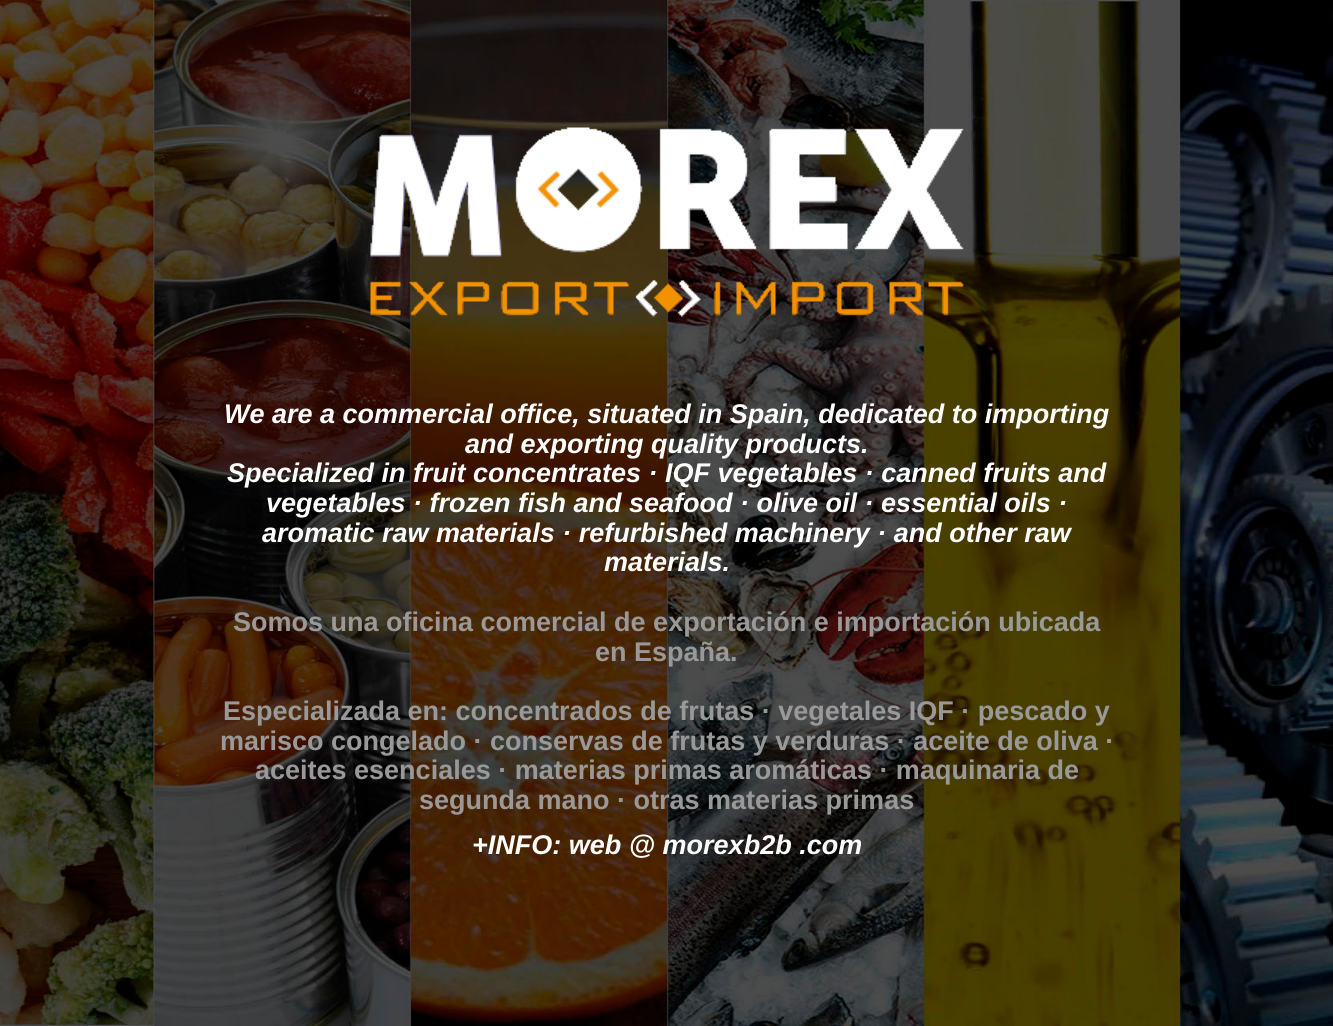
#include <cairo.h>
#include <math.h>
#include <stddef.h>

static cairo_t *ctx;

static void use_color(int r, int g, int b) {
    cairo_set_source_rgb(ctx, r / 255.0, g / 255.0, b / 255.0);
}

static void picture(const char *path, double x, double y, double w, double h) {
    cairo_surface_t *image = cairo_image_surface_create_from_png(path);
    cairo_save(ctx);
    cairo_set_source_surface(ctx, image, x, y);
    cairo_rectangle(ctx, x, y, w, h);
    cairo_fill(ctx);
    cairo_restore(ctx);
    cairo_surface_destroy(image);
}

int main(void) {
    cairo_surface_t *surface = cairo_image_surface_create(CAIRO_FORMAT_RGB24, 1333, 1026);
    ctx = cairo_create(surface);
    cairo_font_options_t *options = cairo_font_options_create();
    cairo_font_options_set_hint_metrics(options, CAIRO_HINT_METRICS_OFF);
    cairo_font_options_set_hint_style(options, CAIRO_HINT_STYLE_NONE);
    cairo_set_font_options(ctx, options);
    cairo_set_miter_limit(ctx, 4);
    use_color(255, 255, 255);
    cairo_paint(ctx);
    picture("img1.png", 0, 0, 1333, 1026);
    picture("img2.png", 370, 127, 594, 190);
    cairo_select_font_face(ctx, "Liberation Sans", CAIRO_FONT_SLANT_ITALIC, CAIRO_FONT_WEIGHT_BOLD);
    cairo_set_font_size(ctx, 27);
    use_color(255, 255, 255);
    cairo_move_to(ctx, 224, 423);
    cairo_show_text(ctx, "We are a commercial office, situated in Spain, dedicated to importing");
    cairo_move_to(ctx, 465, 453);
    cairo_show_text(ctx, "and exporting quality products.");
    cairo_move_to(ctx, 227, 482);
    cairo_show_text(ctx, "Specialized in fruit concentrates · IQF vegetables · canned fruits and");
    cairo_move_to(ctx, 266, 512);
    cairo_show_text(ctx, "vegetables · frozen fish and seafood · olive oil · essential oils ·");
    cairo_move_to(ctx, 262, 542);
    cairo_show_text(ctx, "aromatic raw materials · refurbished machinery · and other raw");
    cairo_move_to(ctx, 604, 571);
    cairo_show_text(ctx, "materials.");
    cairo_select_font_face(ctx, "Liberation Sans", CAIRO_FONT_SLANT_NORMAL, CAIRO_FONT_WEIGHT_BOLD);
    use_color(153, 153, 153);
    cairo_move_to(ctx, 233, 631);
    cairo_show_text(ctx, "Somos una oficina comercial de exportación e importación ubicada");
    cairo_move_to(ctx, 595, 661);
    cairo_show_text(ctx, "en España.");
    cairo_move_to(ctx, 223, 720);
    cairo_show_text(ctx, "Especializada en: concentrados de frutas · vegetales IQF · pescado y");
    cairo_move_to(ctx, 220, 750);
    cairo_show_text(ctx, "marisco congelado · conservas de frutas y verduras · aceite de oliva ·");
    cairo_move_to(ctx, 255, 779);
    cairo_show_text(ctx, "aceites esenciales · materias primas aromáticas · maquinaria de");
    cairo_move_to(ctx, 419, 809);
    cairo_show_text(ctx, "segunda mano · otras materias primas");
    cairo_select_font_face(ctx, "Liberation Sans", CAIRO_FONT_SLANT_ITALIC, CAIRO_FONT_WEIGHT_BOLD);
    use_color(255, 255, 255);
    cairo_move_to(ctx, 472, 854);
    cairo_show_text(ctx, "+INFO: web @ morexb2b .com");
    cairo_surface_write_to_png(surface, "result.png");
    cairo_font_options_destroy(options);
    cairo_destroy(ctx);
    cairo_surface_destroy(surface);
    return 0;
}
